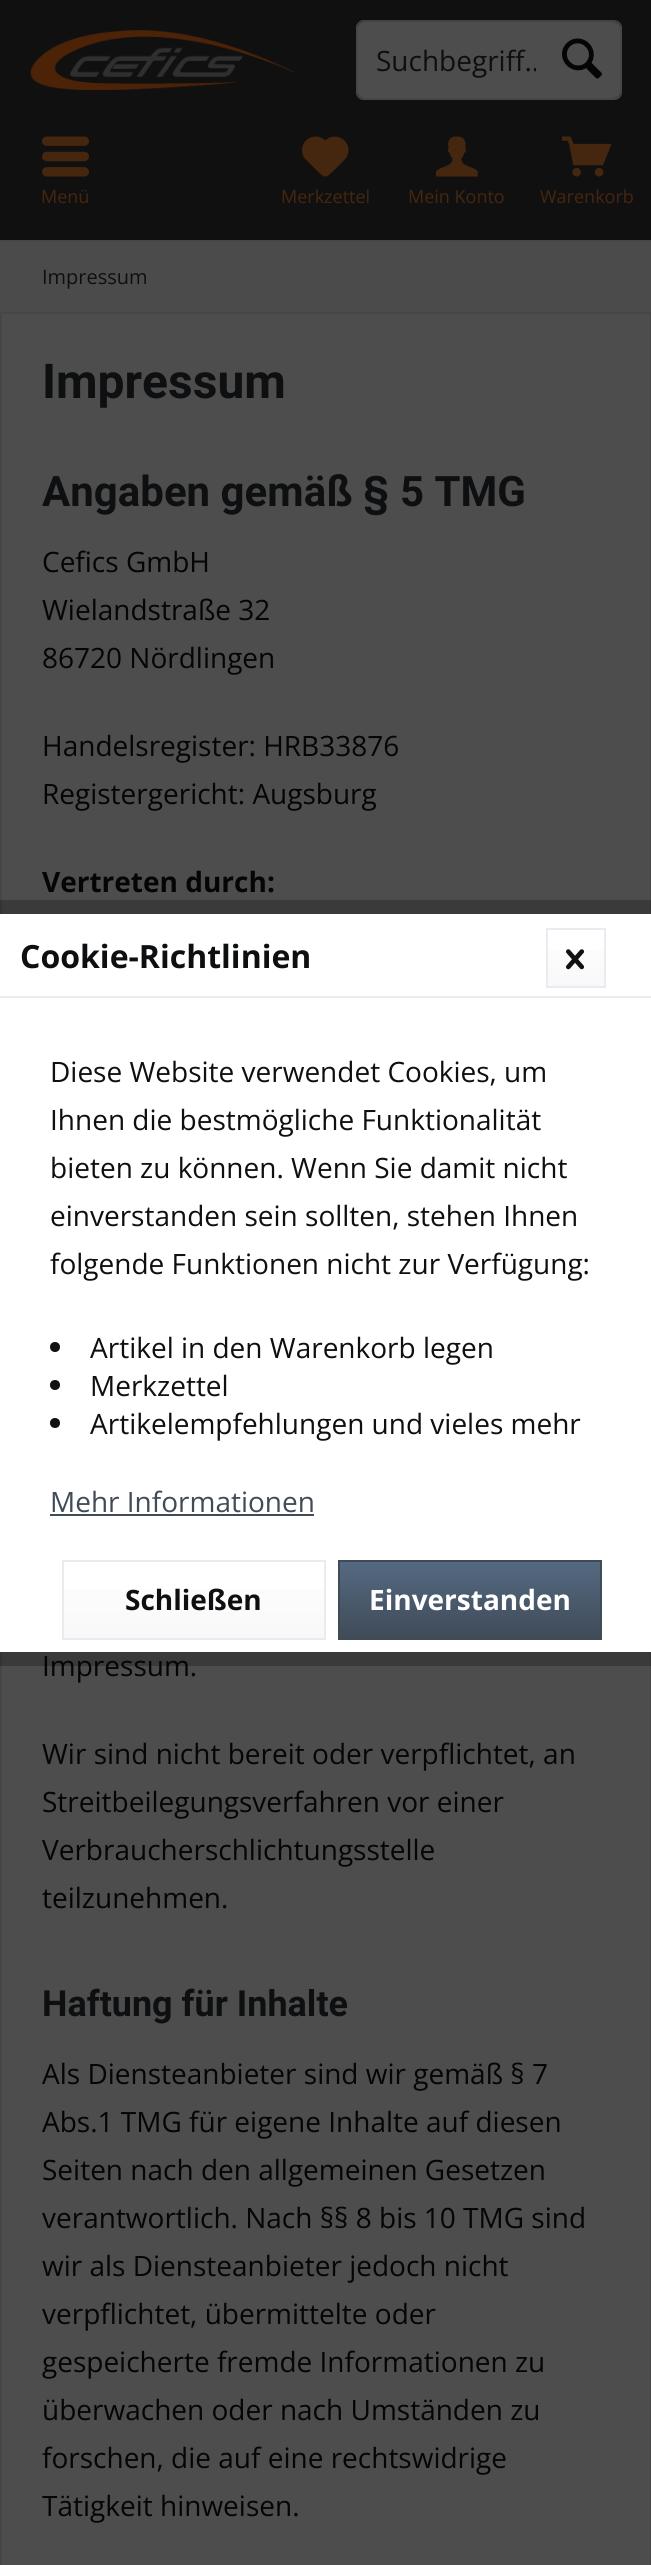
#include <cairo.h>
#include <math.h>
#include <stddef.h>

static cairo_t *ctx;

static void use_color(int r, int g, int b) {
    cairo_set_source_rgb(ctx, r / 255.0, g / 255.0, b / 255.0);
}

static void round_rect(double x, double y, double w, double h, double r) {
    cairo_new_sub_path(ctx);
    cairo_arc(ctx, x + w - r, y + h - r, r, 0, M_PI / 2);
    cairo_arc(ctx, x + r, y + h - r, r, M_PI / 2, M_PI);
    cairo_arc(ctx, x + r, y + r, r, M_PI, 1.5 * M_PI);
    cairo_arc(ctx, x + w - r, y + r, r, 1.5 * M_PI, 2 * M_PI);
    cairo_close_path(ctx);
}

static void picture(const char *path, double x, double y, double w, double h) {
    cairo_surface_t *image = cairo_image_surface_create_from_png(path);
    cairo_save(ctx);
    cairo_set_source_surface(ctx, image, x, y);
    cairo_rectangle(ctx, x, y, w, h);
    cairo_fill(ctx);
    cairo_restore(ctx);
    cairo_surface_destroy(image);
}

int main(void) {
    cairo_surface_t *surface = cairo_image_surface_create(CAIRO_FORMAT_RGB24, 651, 2565);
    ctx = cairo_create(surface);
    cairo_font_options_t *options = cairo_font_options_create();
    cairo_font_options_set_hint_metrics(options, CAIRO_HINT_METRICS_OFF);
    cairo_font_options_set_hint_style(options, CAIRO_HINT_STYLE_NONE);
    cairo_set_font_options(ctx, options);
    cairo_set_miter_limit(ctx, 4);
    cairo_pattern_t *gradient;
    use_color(17, 16, 17);
    cairo_paint(ctx);
    use_color(77, 77, 77);
    round_rect(358, 22, 262, 76, 6);
    cairo_fill(ctx);
    cairo_new_path(ctx);
    cairo_move_to(ctx, 359, 23);
    cairo_curve_to(ctx, 360.5, 21.5, 362, 21, 364, 21);
    cairo_line_to(ctx, 614, 21);
    cairo_curve_to(ctx, 616, 21, 617.5, 21.5, 619, 23);
    use_color(66, 66, 69);
    cairo_stroke(ctx);
    cairo_new_path(ctx);
    cairo_move_to(ctx, 619, 23);
    cairo_curve_to(ctx, 620.5, 24.5, 621, 26, 621, 28);
    cairo_line_to(ctx, 621, 92);
    cairo_curve_to(ctx, 621, 94, 620.5, 95.5, 619, 97);
    cairo_curve_to(ctx, 617.5, 98.5, 616, 99, 614, 99);
    cairo_line_to(ctx, 364, 99);
    cairo_curve_to(ctx, 362, 99, 360.5, 98.5, 359, 97);
    cairo_curve_to(ctx, 357.5, 95.5, 357, 94, 357, 92);
    cairo_line_to(ctx, 357, 28);
    cairo_curve_to(ctx, 357, 26, 357.5, 24.5, 359, 23);
    use_color(70, 70, 72);
    cairo_stroke(ctx);
    cairo_save(ctx);
    cairo_rectangle(ctx, 376, 42, 160, 38);
    cairo_clip(ctx);
    cairo_select_font_face(ctx, "Open Sans", CAIRO_FONT_SLANT_NORMAL, CAIRO_FONT_WEIGHT_NORMAL);
    cairo_set_font_size(ctx, 28);
    use_color(13, 15, 17);
    cairo_move_to(ctx, 376, 71);
    cairo_show_text(ctx, "Suchbegriff..");
    cairo_restore(ctx);
    picture("img1.png", 562, 38, 40, 41);
    picture("img2.png", 30, 30, 266, 60);
    picture("img3.png", 42, 136, 47, 41);
    cairo_select_font_face(ctx, "Open Sans", CAIRO_FONT_SLANT_NORMAL, CAIRO_FONT_WEIGHT_NORMAL);
    cairo_set_font_size(ctx, 18);
    use_color(69, 38, 15);
    cairo_move_to(ctx, 41, 203);
    cairo_show_text(ctx, "Menü");
    picture("img4.png", 302, 136, 47, 41);
    cairo_move_to(ctx, 281, 203);
    cairo_show_text(ctx, "Merkzettel");
    picture("img5.png", 436, 136, 42, 41);
    cairo_move_to(ctx, 408, 203);
    cairo_show_text(ctx, "Mein Konto");
    picture("img6.png", 562, 136, 50, 41);
    cairo_move_to(ctx, 540, 203);
    cairo_show_text(ctx, "Warenkorb");
    use_color(75, 75, 75);
    cairo_rectangle(ctx, 0, 242, 651, 70);
    cairo_fill(ctx);
    use_color(70, 70, 72);
    cairo_rectangle(ctx, 0, 240, 651, 2);
    cairo_fill(ctx);
    cairo_set_font_size(ctx, 20);
    use_color(13, 15, 17);
    cairo_move_to(ctx, 42, 284);
    cairo_show_text(ctx, "Impressum");
    use_color(77, 77, 77);
    cairo_rectangle(ctx, 1, 313, 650, 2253);
    cairo_fill_preserve(ctx);
    use_color(70, 70, 72);
    cairo_stroke(ctx);
    cairo_select_font_face(ctx, "Roboto", CAIRO_FONT_SLANT_NORMAL, CAIRO_FONT_WEIGHT_BOLD);
    cairo_set_font_size(ctx, 48);
    use_color(13, 15, 17);
    cairo_move_to(ctx, 42, 398);
    cairo_show_text(ctx, "Impressum");
    cairo_set_font_size(ctx, 42);
    cairo_move_to(ctx, 42, 506);
    cairo_show_text(ctx, "Angaben gemäß § 5 TMG");
    cairo_select_font_face(ctx, "Open Sans", CAIRO_FONT_SLANT_NORMAL, CAIRO_FONT_WEIGHT_NORMAL);
    cairo_set_font_size(ctx, 28);
    use_color(5, 5, 5);
    cairo_move_to(ctx, 42, 572);
    cairo_show_text(ctx, "Cefics GmbH");
    cairo_move_to(ctx, 42, 620);
    cairo_show_text(ctx, "Wielandstraße 32");
    cairo_move_to(ctx, 42, 668);
    cairo_show_text(ctx, "86720 Nördlingen");
    cairo_move_to(ctx, 42, 756);
    cairo_show_text(ctx, "Handelsregister: HRB33876");
    cairo_move_to(ctx, 42, 804);
    cairo_show_text(ctx, "Registergericht: Augsburg");
    cairo_select_font_face(ctx, "Open Sans", CAIRO_FONT_SLANT_NORMAL, CAIRO_FONT_WEIGHT_BOLD);
    cairo_move_to(ctx, 42, 892);
    cairo_show_text(ctx, "Vertreten durch:");
    cairo_select_font_face(ctx, "Open Sans", CAIRO_FONT_SLANT_NORMAL, CAIRO_FONT_WEIGHT_NORMAL);
    cairo_move_to(ctx, 42, 1676);
    cairo_show_text(ctx, "Impressum.");
    cairo_move_to(ctx, 42, 1764);
    cairo_show_text(ctx, "Wir sind nicht bereit oder verpflichtet, an");
    cairo_move_to(ctx, 42, 1812);
    cairo_show_text(ctx, "Streitbeilegungsverfahren vor einer");
    cairo_move_to(ctx, 42, 1860);
    cairo_show_text(ctx, "Verbraucherschlichtungsstelle");
    cairo_move_to(ctx, 42, 1908);
    cairo_show_text(ctx, "teilzunehmen.");
    cairo_select_font_face(ctx, "Roboto", CAIRO_FONT_SLANT_NORMAL, CAIRO_FONT_WEIGHT_BOLD);
    cairo_set_font_size(ctx, 36);
    use_color(13, 15, 17);
    cairo_move_to(ctx, 42, 2016);
    cairo_show_text(ctx, "Haftung für Inhalte");
    cairo_select_font_face(ctx, "Open Sans", CAIRO_FONT_SLANT_NORMAL, CAIRO_FONT_WEIGHT_NORMAL);
    cairo_set_font_size(ctx, 28);
    use_color(5, 5, 5);
    cairo_move_to(ctx, 42, 2084);
    cairo_show_text(ctx, "Als Diensteanbieter sind wir gemäß § 7");
    cairo_move_to(ctx, 42, 2132);
    cairo_show_text(ctx, "Abs.1 TMG für eigene Inhalte auf diesen");
    cairo_move_to(ctx, 42, 2180);
    cairo_show_text(ctx, "Seiten nach den allgemeinen Gesetzen");
    cairo_move_to(ctx, 42, 2228);
    cairo_show_text(ctx, "verantwortlich. Nach §§ 8 bis 10 TMG sind");
    cairo_move_to(ctx, 42, 2276);
    cairo_show_text(ctx, "wir als Diensteanbieter jedoch nicht");
    cairo_move_to(ctx, 42, 2324);
    cairo_show_text(ctx, "verpflichtet, übermittelte oder");
    cairo_move_to(ctx, 42, 2372);
    cairo_show_text(ctx, "gespeicherte fremde Informationen zu");
    cairo_move_to(ctx, 42, 2420);
    cairo_show_text(ctx, "überwachen oder nach Umständen zu");
    cairo_move_to(ctx, 42, 2468);
    cairo_show_text(ctx, "forschen, die auf eine rechtswidrige");
    cairo_move_to(ctx, 42, 2516);
    cairo_show_text(ctx, "Tätigkeit hinweisen.");
    cairo_rectangle(ctx, -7, 907, 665, 752);
    cairo_set_source_rgba(ctx, 0, 0, 0, 0.25);
    cairo_set_line_width(ctx, 14);
    cairo_stroke(ctx);
    use_color(255, 255, 255);
    cairo_rectangle(ctx, 0, 914, 651, 738);
    cairo_fill(ctx);
    use_color(234, 234, 240);
    cairo_rectangle(ctx, 0, 996, 651, 2);
    cairo_fill(ctx);
    cairo_select_font_face(ctx, "Open Sans", CAIRO_FONT_SLANT_NORMAL, CAIRO_FONT_WEIGHT_BOLD);
    cairo_set_font_size(ctx, 32);
    use_color(13, 15, 17);
    cairo_move_to(ctx, 20, 968);
    cairo_show_text(ctx, "Cookie-Richtlinien");
    gradient = cairo_pattern_create_linear(576, 930, 576, 986);
    cairo_pattern_add_color_stop_rgba(gradient, 0, 1, 1, 1, 1);
    cairo_pattern_add_color_stop_rgba(gradient, 1, 0.973, 0.973, 0.98, 1);
    cairo_set_source(ctx, gradient);
    cairo_pattern_destroy(gradient);
    cairo_rectangle(ctx, 548, 950, 56, 36);
    cairo_fill(ctx);
    cairo_rectangle(ctx, 547, 929, 58, 58);
    use_color(234, 234, 240);
    cairo_set_line_width(ctx, 2);
    cairo_stroke(ctx);
    picture("img7.png", 566, 949, 19, 21);
    cairo_select_font_face(ctx, "Open Sans", CAIRO_FONT_SLANT_NORMAL, CAIRO_FONT_WEIGHT_NORMAL);
    cairo_set_font_size(ctx, 28);
    use_color(13, 15, 17);
    cairo_move_to(ctx, 50, 1082);
    cairo_show_text(ctx, "Diese Website verwendet Cookies, um");
    cairo_move_to(ctx, 50, 1130);
    cairo_show_text(ctx, "Ihnen die bestmögliche Funktionalität");
    cairo_move_to(ctx, 50, 1178);
    cairo_show_text(ctx, "bieten zu können. Wenn Sie damit nicht");
    cairo_move_to(ctx, 50, 1226);
    cairo_show_text(ctx, "einverstanden sein sollten, stehen Ihnen");
    cairo_move_to(ctx, 50, 1274);
    cairo_show_text(ctx, "folgende Funktionen nicht zur Verfügung:");
    use_color(17, 17, 17);
    cairo_new_path(ctx);
    cairo_arc(ctx, 55, 1347, 5, 0, 2 * M_PI);
    cairo_fill(ctx);
    use_color(13, 15, 17);
    cairo_move_to(ctx, 90, 1358);
    cairo_show_text(ctx, "Artikel in den Warenkorb legen");
    use_color(17, 17, 17);
    cairo_new_path(ctx);
    cairo_arc(ctx, 55, 1385, 5, 0, 2 * M_PI);
    cairo_fill(ctx);
    use_color(13, 15, 17);
    cairo_move_to(ctx, 90, 1396);
    cairo_show_text(ctx, "Merkzettel");
    use_color(17, 17, 17);
    cairo_new_path(ctx);
    cairo_arc(ctx, 55, 1423, 5, 0, 2 * M_PI);
    cairo_fill(ctx);
    use_color(13, 15, 17);
    cairo_move_to(ctx, 90, 1434);
    cairo_show_text(ctx, "Artikelempfehlungen und vieles mehr");
    use_color(64, 75, 88);
    cairo_move_to(ctx, 50, 1512);
    cairo_show_text(ctx, "Mehr Informationen");
    cairo_rectangle(ctx, 50, 1514, 264, 2);
    cairo_fill(ctx);
    gradient = cairo_pattern_create_linear(194, 1562, 194, 1638);
    cairo_pattern_add_color_stop_rgba(gradient, 0, 1, 1, 1, 1);
    cairo_pattern_add_color_stop_rgba(gradient, 1, 0.973, 0.973, 0.98, 1);
    cairo_set_source(ctx, gradient);
    cairo_pattern_destroy(gradient);
    cairo_rectangle(ctx, 64, 1589, 260, 49);
    cairo_fill(ctx);
    cairo_rectangle(ctx, 63, 1561, 262, 78);
    use_color(234, 234, 240);
    cairo_stroke(ctx);
    cairo_select_font_face(ctx, "Open Sans", CAIRO_FONT_SLANT_NORMAL, CAIRO_FONT_WEIGHT_BOLD);
    use_color(13, 15, 17);
    cairo_move_to(ctx, 125, 1610);
    cairo_show_text(ctx, "Schließen");
    gradient = cairo_pattern_create_linear(470, 1562, 470, 1638);
    cairo_pattern_add_color_stop_rgba(gradient, 0, 0.329, 0.412, 0.506, 1);
    cairo_pattern_add_color_stop_rgba(gradient, 1, 0.251, 0.294, 0.345, 1);
    cairo_set_source(ctx, gradient);
    cairo_pattern_destroy(gradient);
    cairo_rectangle(ctx, 340, 1562, 260, 76);
    cairo_fill(ctx);
    cairo_rectangle(ctx, 339, 1561, 262, 78);
    use_color(64, 75, 88);
    cairo_stroke(ctx);
    use_color(255, 255, 255);
    cairo_move_to(ctx, 369, 1610);
    cairo_show_text(ctx, "Einverstanden");
    cairo_surface_write_to_png(surface, "result.png");
    cairo_font_options_destroy(options);
    cairo_destroy(ctx);
    cairo_surface_destroy(surface);
    return 0;
}
